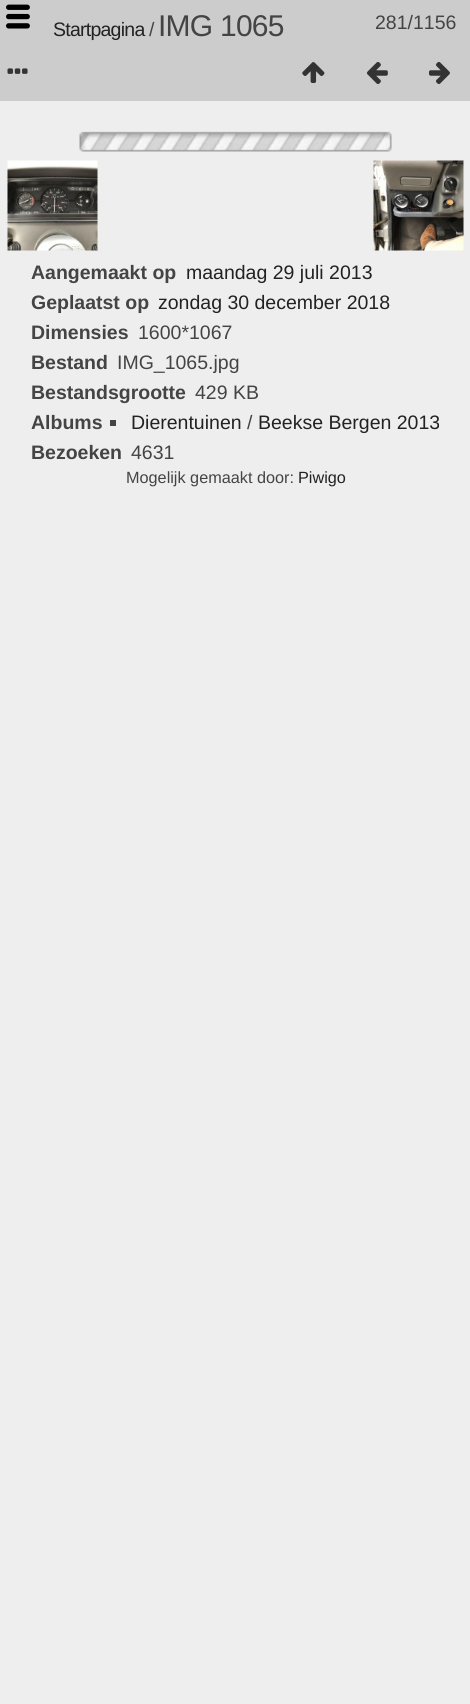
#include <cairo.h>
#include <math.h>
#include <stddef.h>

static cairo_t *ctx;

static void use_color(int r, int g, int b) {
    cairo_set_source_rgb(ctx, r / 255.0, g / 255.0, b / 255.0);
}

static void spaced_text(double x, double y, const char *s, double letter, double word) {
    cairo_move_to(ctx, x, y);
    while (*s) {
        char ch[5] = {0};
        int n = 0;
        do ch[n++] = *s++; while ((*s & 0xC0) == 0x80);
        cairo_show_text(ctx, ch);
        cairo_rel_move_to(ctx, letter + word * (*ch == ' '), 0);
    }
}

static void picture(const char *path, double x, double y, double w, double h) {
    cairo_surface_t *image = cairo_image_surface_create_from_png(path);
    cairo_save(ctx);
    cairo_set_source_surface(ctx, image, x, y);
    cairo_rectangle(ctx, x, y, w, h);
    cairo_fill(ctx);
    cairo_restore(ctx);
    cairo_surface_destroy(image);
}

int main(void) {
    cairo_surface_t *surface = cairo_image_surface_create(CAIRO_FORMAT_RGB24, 470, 1704);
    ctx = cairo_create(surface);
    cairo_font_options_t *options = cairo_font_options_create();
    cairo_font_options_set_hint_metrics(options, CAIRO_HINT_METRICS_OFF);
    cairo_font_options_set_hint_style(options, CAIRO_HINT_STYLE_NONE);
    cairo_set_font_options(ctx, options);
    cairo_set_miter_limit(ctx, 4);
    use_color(238, 238, 238);
    cairo_paint(ctx);
    use_color(204, 204, 204);
    cairo_rectangle(ctx, 0, 0, 470, 101);
    cairo_fill(ctx);
    picture("img1.png", 6, 4, 24, 25);
    cairo_select_font_face(ctx, "Liberation Sans", CAIRO_FONT_SLANT_NORMAL, CAIRO_FONT_WEIGHT_NORMAL);
    cairo_set_font_size(ctx, 19.5);
    use_color(34, 34, 34);
    spaced_text(53, 36, "Startpagina", -0.75, 0);
    use_color(68, 68, 68);
    spaced_text(149, 36, "/", -0.75, 0);
    cairo_set_font_size(ctx, 30);
    spaced_text(158, 36, "IMG 1065", -0.75, 0);
    cairo_set_font_size(ctx, 19.5);
    cairo_move_to(ctx, 375, 29);
    cairo_show_text(ctx, "281/1156");
    picture("img2.png", 7, 68, 21, 6);
    picture("img3.png", 302, 62, 23, 21);
    picture("img4.png", 367, 62, 21, 22);
    picture("img5.png", 429, 61, 21, 23);
    picture("img6.png", 79, 131, 313, 21);
    picture("img7.png", 7, 160, 91, 91);
    picture("img8.png", 373, 160, 91, 91);
    cairo_select_font_face(ctx, "Liberation Sans", CAIRO_FONT_SLANT_NORMAL, CAIRO_FONT_WEIGHT_BOLD);
    cairo_move_to(ctx, 31, 279);
    cairo_show_text(ctx, "Aangemaakt op");
    cairo_select_font_face(ctx, "Liberation Sans", CAIRO_FONT_SLANT_NORMAL, CAIRO_FONT_WEIGHT_NORMAL);
    use_color(34, 34, 34);
    cairo_move_to(ctx, 186, 279);
    cairo_show_text(ctx, "maandag 29 juli 2013");
    cairo_select_font_face(ctx, "Liberation Sans", CAIRO_FONT_SLANT_NORMAL, CAIRO_FONT_WEIGHT_BOLD);
    use_color(68, 68, 68);
    cairo_move_to(ctx, 31, 309);
    cairo_show_text(ctx, "Geplaatst op");
    cairo_select_font_face(ctx, "Liberation Sans", CAIRO_FONT_SLANT_NORMAL, CAIRO_FONT_WEIGHT_NORMAL);
    use_color(34, 34, 34);
    cairo_move_to(ctx, 158, 309);
    cairo_show_text(ctx, "zondag 30 december 2018");
    cairo_select_font_face(ctx, "Liberation Sans", CAIRO_FONT_SLANT_NORMAL, CAIRO_FONT_WEIGHT_BOLD);
    use_color(68, 68, 68);
    cairo_move_to(ctx, 31, 339);
    cairo_show_text(ctx, "Dimensies");
    cairo_select_font_face(ctx, "Liberation Sans", CAIRO_FONT_SLANT_NORMAL, CAIRO_FONT_WEIGHT_NORMAL);
    cairo_move_to(ctx, 138, 339);
    cairo_show_text(ctx, "1600*1067");
    cairo_select_font_face(ctx, "Liberation Sans", CAIRO_FONT_SLANT_NORMAL, CAIRO_FONT_WEIGHT_BOLD);
    cairo_move_to(ctx, 31, 369);
    cairo_show_text(ctx, "Bestand");
    cairo_select_font_face(ctx, "Liberation Sans", CAIRO_FONT_SLANT_NORMAL, CAIRO_FONT_WEIGHT_NORMAL);
    cairo_move_to(ctx, 117, 369);
    cairo_show_text(ctx, "IMG_1065.jpg");
    cairo_select_font_face(ctx, "Liberation Sans", CAIRO_FONT_SLANT_NORMAL, CAIRO_FONT_WEIGHT_BOLD);
    cairo_move_to(ctx, 31, 399);
    cairo_show_text(ctx, "Bestandsgrootte");
    cairo_select_font_face(ctx, "Liberation Sans", CAIRO_FONT_SLANT_NORMAL, CAIRO_FONT_WEIGHT_NORMAL);
    cairo_move_to(ctx, 195, 399);
    cairo_show_text(ctx, "429 KB");
    cairo_select_font_face(ctx, "Liberation Sans", CAIRO_FONT_SLANT_NORMAL, CAIRO_FONT_WEIGHT_BOLD);
    cairo_move_to(ctx, 31, 429);
    cairo_show_text(ctx, "Albums");
    cairo_rectangle(ctx, 110, 420, 6, 6);
    cairo_fill(ctx);
    cairo_select_font_face(ctx, "Liberation Sans", CAIRO_FONT_SLANT_NORMAL, CAIRO_FONT_WEIGHT_NORMAL);
    use_color(34, 34, 34);
    cairo_move_to(ctx, 131, 429);
    cairo_show_text(ctx, "Dierentuinen");
    use_color(68, 68, 68);
    cairo_move_to(ctx, 247, 429);
    cairo_show_text(ctx, "/");
    use_color(34, 34, 34);
    cairo_move_to(ctx, 258, 429);
    cairo_show_text(ctx, "Beekse Bergen 2013");
    cairo_select_font_face(ctx, "Liberation Sans", CAIRO_FONT_SLANT_NORMAL, CAIRO_FONT_WEIGHT_BOLD);
    use_color(68, 68, 68);
    cairo_move_to(ctx, 31, 459);
    cairo_show_text(ctx, "Bezoeken");
    cairo_select_font_face(ctx, "Liberation Sans", CAIRO_FONT_SLANT_NORMAL, CAIRO_FONT_WEIGHT_NORMAL);
    cairo_move_to(ctx, 131, 459);
    cairo_show_text(ctx, "4631");
    cairo_set_font_size(ctx, 16.25);
    cairo_move_to(ctx, 126, 483);
    cairo_show_text(ctx, "Mogelijk gemaakt door:");
    use_color(34, 34, 34);
    cairo_move_to(ctx, 298, 483);
    cairo_show_text(ctx, "Piwigo");
    cairo_surface_write_to_png(surface, "result.png");
    cairo_font_options_destroy(options);
    cairo_destroy(ctx);
    cairo_surface_destroy(surface);
    return 0;
}
